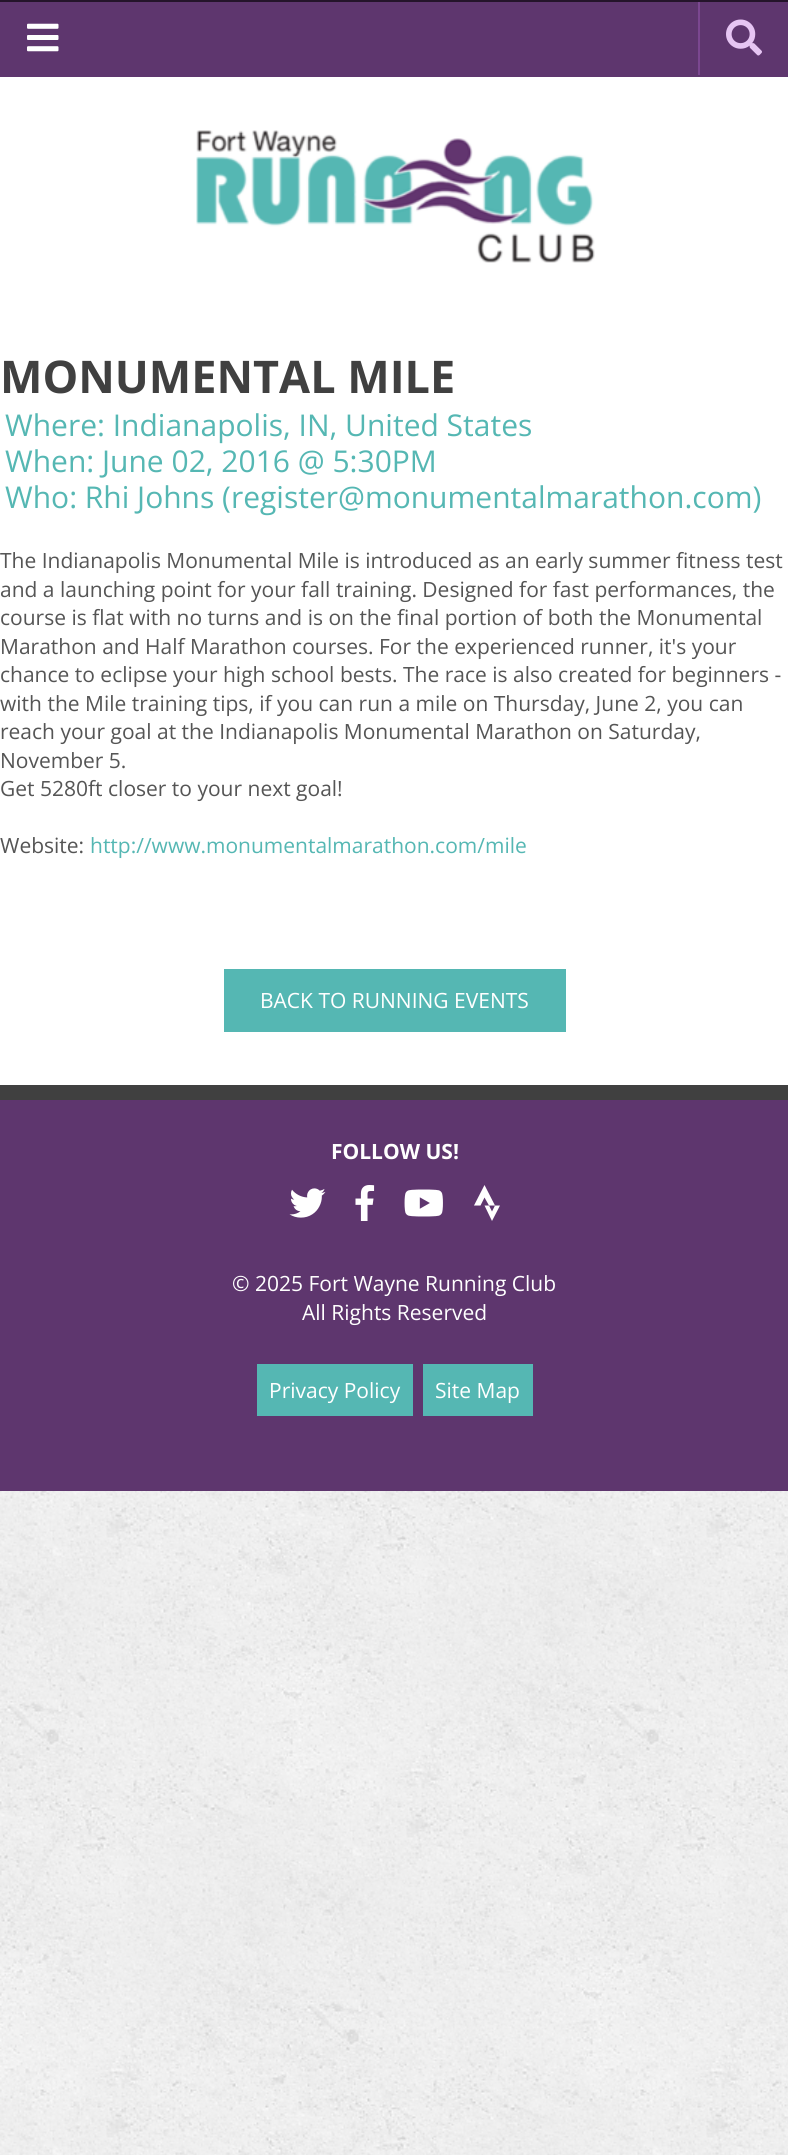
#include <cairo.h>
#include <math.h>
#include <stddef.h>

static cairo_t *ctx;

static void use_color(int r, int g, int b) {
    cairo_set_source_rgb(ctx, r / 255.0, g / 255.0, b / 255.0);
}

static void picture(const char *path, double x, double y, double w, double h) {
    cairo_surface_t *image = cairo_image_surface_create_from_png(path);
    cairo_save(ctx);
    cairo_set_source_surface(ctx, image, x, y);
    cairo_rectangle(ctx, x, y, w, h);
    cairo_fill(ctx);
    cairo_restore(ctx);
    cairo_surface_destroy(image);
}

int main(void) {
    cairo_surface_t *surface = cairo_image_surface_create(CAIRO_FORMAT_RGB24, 788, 2155);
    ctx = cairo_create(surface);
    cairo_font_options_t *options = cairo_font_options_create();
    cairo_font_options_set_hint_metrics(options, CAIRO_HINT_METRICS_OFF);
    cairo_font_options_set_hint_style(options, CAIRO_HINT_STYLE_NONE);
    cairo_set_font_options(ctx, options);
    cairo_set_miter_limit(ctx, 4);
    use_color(255, 255, 255);
    cairo_paint(ctx);
    picture("img1.png", 0, 1491, 788, 664);
    use_color(36, 20, 42);
    cairo_rectangle(ctx, 0, 0, 788, 2);
    cairo_fill(ctx);
    use_color(94, 54, 110);
    cairo_rectangle(ctx, 0, 2, 788, 75);
    cairo_fill(ctx);
    picture("img2.png", 27, 23, 32, 29);
    use_color(123, 71, 144);
    cairo_rectangle(ctx, 698, 2, 2, 73);
    cairo_fill(ctx);
    picture("img3.png", 726, 19, 36, 37);
    picture("img4.png", 196, 130, 399, 133);
    cairo_select_font_face(ctx, "Open Sans", CAIRO_FONT_SLANT_NORMAL, CAIRO_FONT_WEIGHT_BOLD);
    cairo_set_font_size(ctx, 45);
    use_color(64, 64, 64);
    cairo_move_to(ctx, 0, 393);
    cairo_show_text(ctx, "MONUMENTAL MILE");
    cairo_select_font_face(ctx, "Open Sans", CAIRO_FONT_SLANT_NORMAL, CAIRO_FONT_WEIGHT_NORMAL);
    cairo_set_font_size(ctx, 30);
    use_color(85, 183, 179);
    cairo_move_to(ctx, 5, 436);
    cairo_show_text(ctx, "Where: Indianapolis, IN, United States");
    cairo_move_to(ctx, 5, 472);
    cairo_show_text(ctx, "When: June 02, 2016 @ 5:30PM");
    cairo_move_to(ctx, 5, 508);
    cairo_show_text(ctx, "Who: Rhi Johns (register@monumentalmarathon.com)");
    cairo_set_font_size(ctx, 21);
    use_color(85, 85, 85);
    cairo_move_to(ctx, 0, 568);
    cairo_show_text(ctx, "The Indianapolis Monumental Mile is introduced as an early summer fitness test");
    cairo_move_to(ctx, 0, 597);
    cairo_show_text(ctx, "and a launching point for your fall training. Designed for fast performances, the");
    cairo_move_to(ctx, 0, 625);
    cairo_show_text(ctx, "course is flat with no turns and is on the final portion of both the Monumental");
    cairo_move_to(ctx, 0, 654);
    cairo_show_text(ctx, "Marathon and Half Marathon courses. For the experienced runner, it's your");
    cairo_move_to(ctx, 0, 682);
    cairo_show_text(ctx, "chance to eclipse your high school bests. The race is also created for beginners -");
    cairo_move_to(ctx, 0, 711);
    cairo_show_text(ctx, "with the Mile training tips, if you can run a mile on Thursday, June 2, you can");
    cairo_move_to(ctx, 0, 739);
    cairo_show_text(ctx, "reach your goal at the Indianapolis Monumental Marathon on Saturday,");
    cairo_move_to(ctx, 0, 768);
    cairo_show_text(ctx, "November 5.");
    cairo_move_to(ctx, 0, 796);
    cairo_show_text(ctx, "Get 5280ft closer to your next goal!");
    cairo_move_to(ctx, 0, 853);
    cairo_show_text(ctx, "Website:");
    use_color(85, 183, 179);
    cairo_move_to(ctx, 90, 853);
    cairo_show_text(ctx, "http://www.monumentalmarathon.com/mile");
    cairo_rectangle(ctx, 224, 969, 342, 63);
    cairo_fill(ctx);
    use_color(255, 255, 255);
    cairo_move_to(ctx, 260, 1008);
    cairo_show_text(ctx, "BACK TO RUNNING EVENTS");
    use_color(94, 54, 110);
    cairo_rectangle(ctx, 0, 1100, 788, 391);
    cairo_fill(ctx);
    use_color(64, 64, 64);
    cairo_rectangle(ctx, 0, 1085, 788, 15);
    cairo_fill(ctx);
    cairo_select_font_face(ctx, "Open Sans", CAIRO_FONT_SLANT_NORMAL, CAIRO_FONT_WEIGHT_BOLD);
    use_color(255, 255, 255);
    cairo_move_to(ctx, 331, 1159);
    cairo_show_text(ctx, "FOLLOW US!");
    picture("img5.png", 289, 1188, 37, 30);
    picture("img6.png", 355, 1185, 20, 36);
    picture("img7.png", 404, 1189, 39, 28);
    cairo_new_path(ctx);
    cairo_move_to(ctx, 495, 1205.5);
    cairo_line_to(ctx, 492, 1211.5);
    cairo_line_to(ctx, 489, 1205.5);
    cairo_line_to(ctx, 484.5, 1205.5);
    cairo_line_to(ctx, 492, 1221);
    cairo_line_to(ctx, 500, 1205.5);
    cairo_close_path(ctx);
    cairo_move_to(ctx, 484.5, 1185);
    cairo_line_to(ctx, 474, 1205.5);
    cairo_line_to(ctx, 480.5, 1205.5);
    cairo_line_to(ctx, 484.5, 1197.5);
    cairo_line_to(ctx, 489, 1205.5);
    cairo_line_to(ctx, 495, 1205.5);
    cairo_close_path(ctx);
    cairo_fill(ctx);
    cairo_select_font_face(ctx, "Open Sans", CAIRO_FONT_SLANT_NORMAL, CAIRO_FONT_WEIGHT_NORMAL);
    cairo_move_to(ctx, 232, 1291);
    cairo_show_text(ctx, "© 2025 Fort Wayne Running Club");
    cairo_move_to(ctx, 302, 1320);
    cairo_show_text(ctx, "All Rights Reserved");
    use_color(85, 183, 179);
    cairo_rectangle(ctx, 257, 1364, 156, 52);
    cairo_fill(ctx);
    use_color(255, 255, 255);
    cairo_move_to(ctx, 269, 1398);
    cairo_show_text(ctx, "Privacy Policy");
    use_color(85, 183, 179);
    cairo_rectangle(ctx, 423, 1364, 110, 52);
    cairo_fill(ctx);
    use_color(255, 255, 255);
    cairo_move_to(ctx, 435, 1398);
    cairo_show_text(ctx, "Site Map");
    cairo_surface_write_to_png(surface, "result.png");
    cairo_font_options_destroy(options);
    cairo_destroy(ctx);
    cairo_surface_destroy(surface);
    return 0;
}
